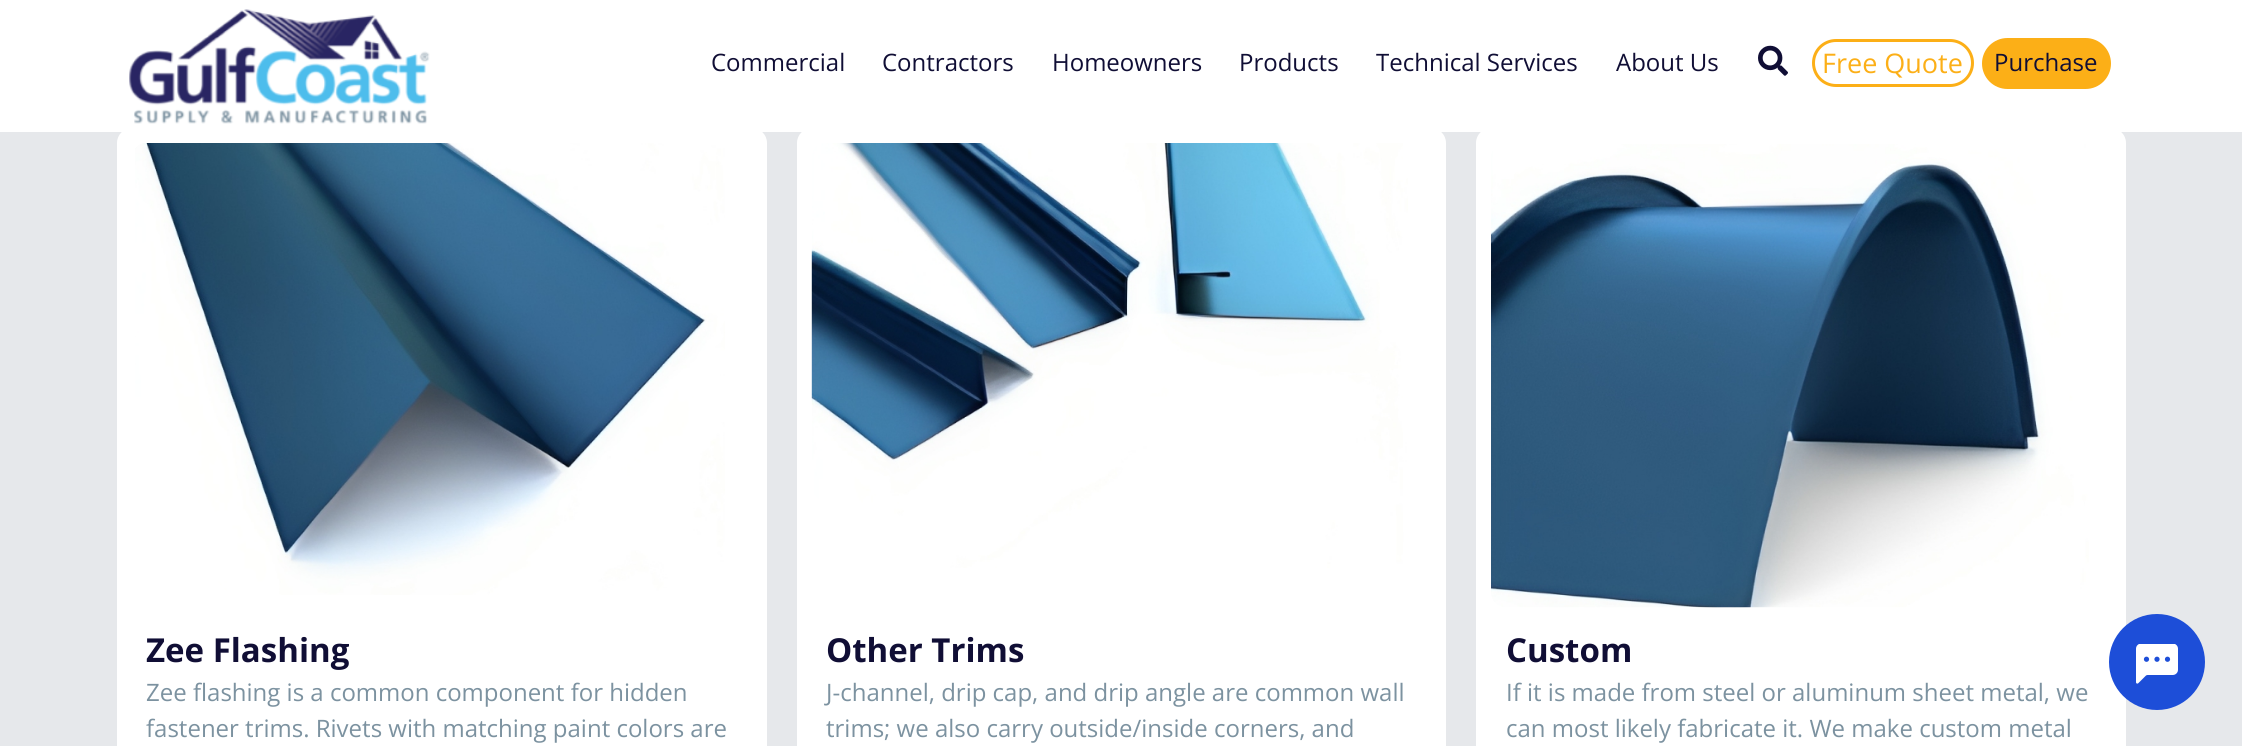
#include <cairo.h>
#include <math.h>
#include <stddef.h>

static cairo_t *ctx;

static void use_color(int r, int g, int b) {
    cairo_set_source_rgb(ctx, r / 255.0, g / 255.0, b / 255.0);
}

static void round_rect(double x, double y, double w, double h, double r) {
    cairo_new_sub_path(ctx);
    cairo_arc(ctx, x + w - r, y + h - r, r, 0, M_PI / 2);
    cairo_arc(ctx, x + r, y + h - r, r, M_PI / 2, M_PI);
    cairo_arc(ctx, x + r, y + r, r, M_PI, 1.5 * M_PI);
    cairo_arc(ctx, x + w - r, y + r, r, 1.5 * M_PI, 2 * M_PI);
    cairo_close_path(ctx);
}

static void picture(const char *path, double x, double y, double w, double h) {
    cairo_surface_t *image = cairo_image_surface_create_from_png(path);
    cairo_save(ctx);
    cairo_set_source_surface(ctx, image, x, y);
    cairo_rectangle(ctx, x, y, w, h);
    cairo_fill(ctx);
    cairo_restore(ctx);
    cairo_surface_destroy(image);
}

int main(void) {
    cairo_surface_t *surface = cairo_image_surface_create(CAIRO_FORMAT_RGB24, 2242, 746);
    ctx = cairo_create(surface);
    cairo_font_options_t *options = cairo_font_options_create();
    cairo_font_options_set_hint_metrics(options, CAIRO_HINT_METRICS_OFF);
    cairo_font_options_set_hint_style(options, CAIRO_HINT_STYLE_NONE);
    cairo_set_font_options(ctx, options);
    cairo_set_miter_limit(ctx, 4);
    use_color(230, 232, 235);
    cairo_paint(ctx);
    use_color(255, 255, 255);
    round_rect(117, 128, 650, 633, 15);
    cairo_fill(ctx);
    round_rect(797, 128, 649, 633, 15);
    cairo_fill(ctx);
    round_rect(1476, 128, 650, 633, 15);
    cairo_fill(ctx);
    cairo_rectangle(ctx, 0, 0, 2242, 132);
    cairo_fill(ctx);
    picture("img1.png", 129, 9, 301, 115);
    cairo_select_font_face(ctx, "Open Sans", CAIRO_FONT_SLANT_NORMAL, CAIRO_FONT_WEIGHT_NORMAL);
    cairo_set_font_size(ctx, 24);
    use_color(16, 14, 53);
    cairo_move_to(ctx, 711, 71);
    cairo_show_text(ctx, "Commercial");
    cairo_move_to(ctx, 882, 71);
    cairo_show_text(ctx, "Contractors");
    cairo_move_to(ctx, 1052, 71);
    cairo_show_text(ctx, "Homeowners");
    cairo_move_to(ctx, 1239, 71);
    cairo_show_text(ctx, "Products");
    cairo_move_to(ctx, 1376, 71);
    cairo_show_text(ctx, "Technical Services");
    cairo_move_to(ctx, 1616, 71);
    cairo_show_text(ctx, "About Us");
    picture("img2.png", 1758, 45, 30, 31);
    round_rect(1813.5, 40.5, 159, 45, 22.5);
    use_color(252, 175, 23);
    cairo_set_line_width(ctx, 3);
    cairo_stroke(ctx);
    cairo_set_font_size(ctx, 27);
    cairo_move_to(ctx, 1822, 73);
    cairo_show_text(ctx, "Free Quote");
    round_rect(1983.5, 39.5, 126, 48, 24);
    cairo_fill_preserve(ctx);
    cairo_stroke(ctx);
    cairo_set_font_size(ctx, 24);
    use_color(16, 14, 53);
    cairo_move_to(ctx, 1994, 71);
    cairo_show_text(ctx, "Purchase");
    picture("img3.png", 135, 143, 590, 452);
    cairo_select_font_face(ctx, "Open Sans", CAIRO_FONT_SLANT_NORMAL, CAIRO_FONT_WEIGHT_BOLD);
    cairo_set_font_size(ctx, 33);
    cairo_move_to(ctx, 146, 662);
    cairo_show_text(ctx, "Zee Flashing");
    cairo_select_font_face(ctx, "Open Sans", CAIRO_FONT_SLANT_NORMAL, CAIRO_FONT_WEIGHT_NORMAL);
    cairo_set_font_size(ctx, 24);
    use_color(124, 146, 160);
    cairo_move_to(ctx, 146, 701);
    cairo_show_text(ctx, "Zee flashing is a common component for hidden");
    cairo_move_to(ctx, 146, 737);
    cairo_show_text(ctx, "fastener trims. Rivets with matching paint colors are");
    picture("img4.png", 811, 143, 597, 425);
    cairo_select_font_face(ctx, "Open Sans", CAIRO_FONT_SLANT_NORMAL, CAIRO_FONT_WEIGHT_BOLD);
    cairo_set_font_size(ctx, 33);
    use_color(16, 14, 53);
    cairo_move_to(ctx, 826, 662);
    cairo_show_text(ctx, "Other Trims");
    cairo_select_font_face(ctx, "Open Sans", CAIRO_FONT_SLANT_NORMAL, CAIRO_FONT_WEIGHT_NORMAL);
    cairo_set_font_size(ctx, 24);
    use_color(124, 146, 160);
    cairo_move_to(ctx, 826, 701);
    cairo_show_text(ctx, "J-channel, drip cap, and drip angle are common wall");
    cairo_move_to(ctx, 826, 737);
    cairo_show_text(ctx, "trims; we also carry outside/inside corners, and");
    picture("img5.png", 1491, 144, 598, 464);
    cairo_select_font_face(ctx, "Open Sans", CAIRO_FONT_SLANT_NORMAL, CAIRO_FONT_WEIGHT_BOLD);
    cairo_set_font_size(ctx, 33);
    use_color(16, 14, 53);
    cairo_move_to(ctx, 1506, 662);
    cairo_show_text(ctx, "Custom");
    cairo_select_font_face(ctx, "Open Sans", CAIRO_FONT_SLANT_NORMAL, CAIRO_FONT_WEIGHT_NORMAL);
    cairo_set_font_size(ctx, 24);
    use_color(124, 146, 160);
    cairo_move_to(ctx, 1506, 701);
    cairo_show_text(ctx, "If it is made from steel or aluminum sheet metal, we");
    cairo_move_to(ctx, 1506, 737);
    cairo_show_text(ctx, "can most likely fabricate it. We make custom metal");
    use_color(29, 78, 216);
    cairo_new_path(ctx);
    cairo_arc(ctx, 2157, 662, 48, 0, 2 * M_PI);
    cairo_fill(ctx);
    picture("img6.png", 2136, 644, 42, 40);
    cairo_surface_write_to_png(surface, "result.png");
    cairo_font_options_destroy(options);
    cairo_destroy(ctx);
    cairo_surface_destroy(surface);
    return 0;
}
